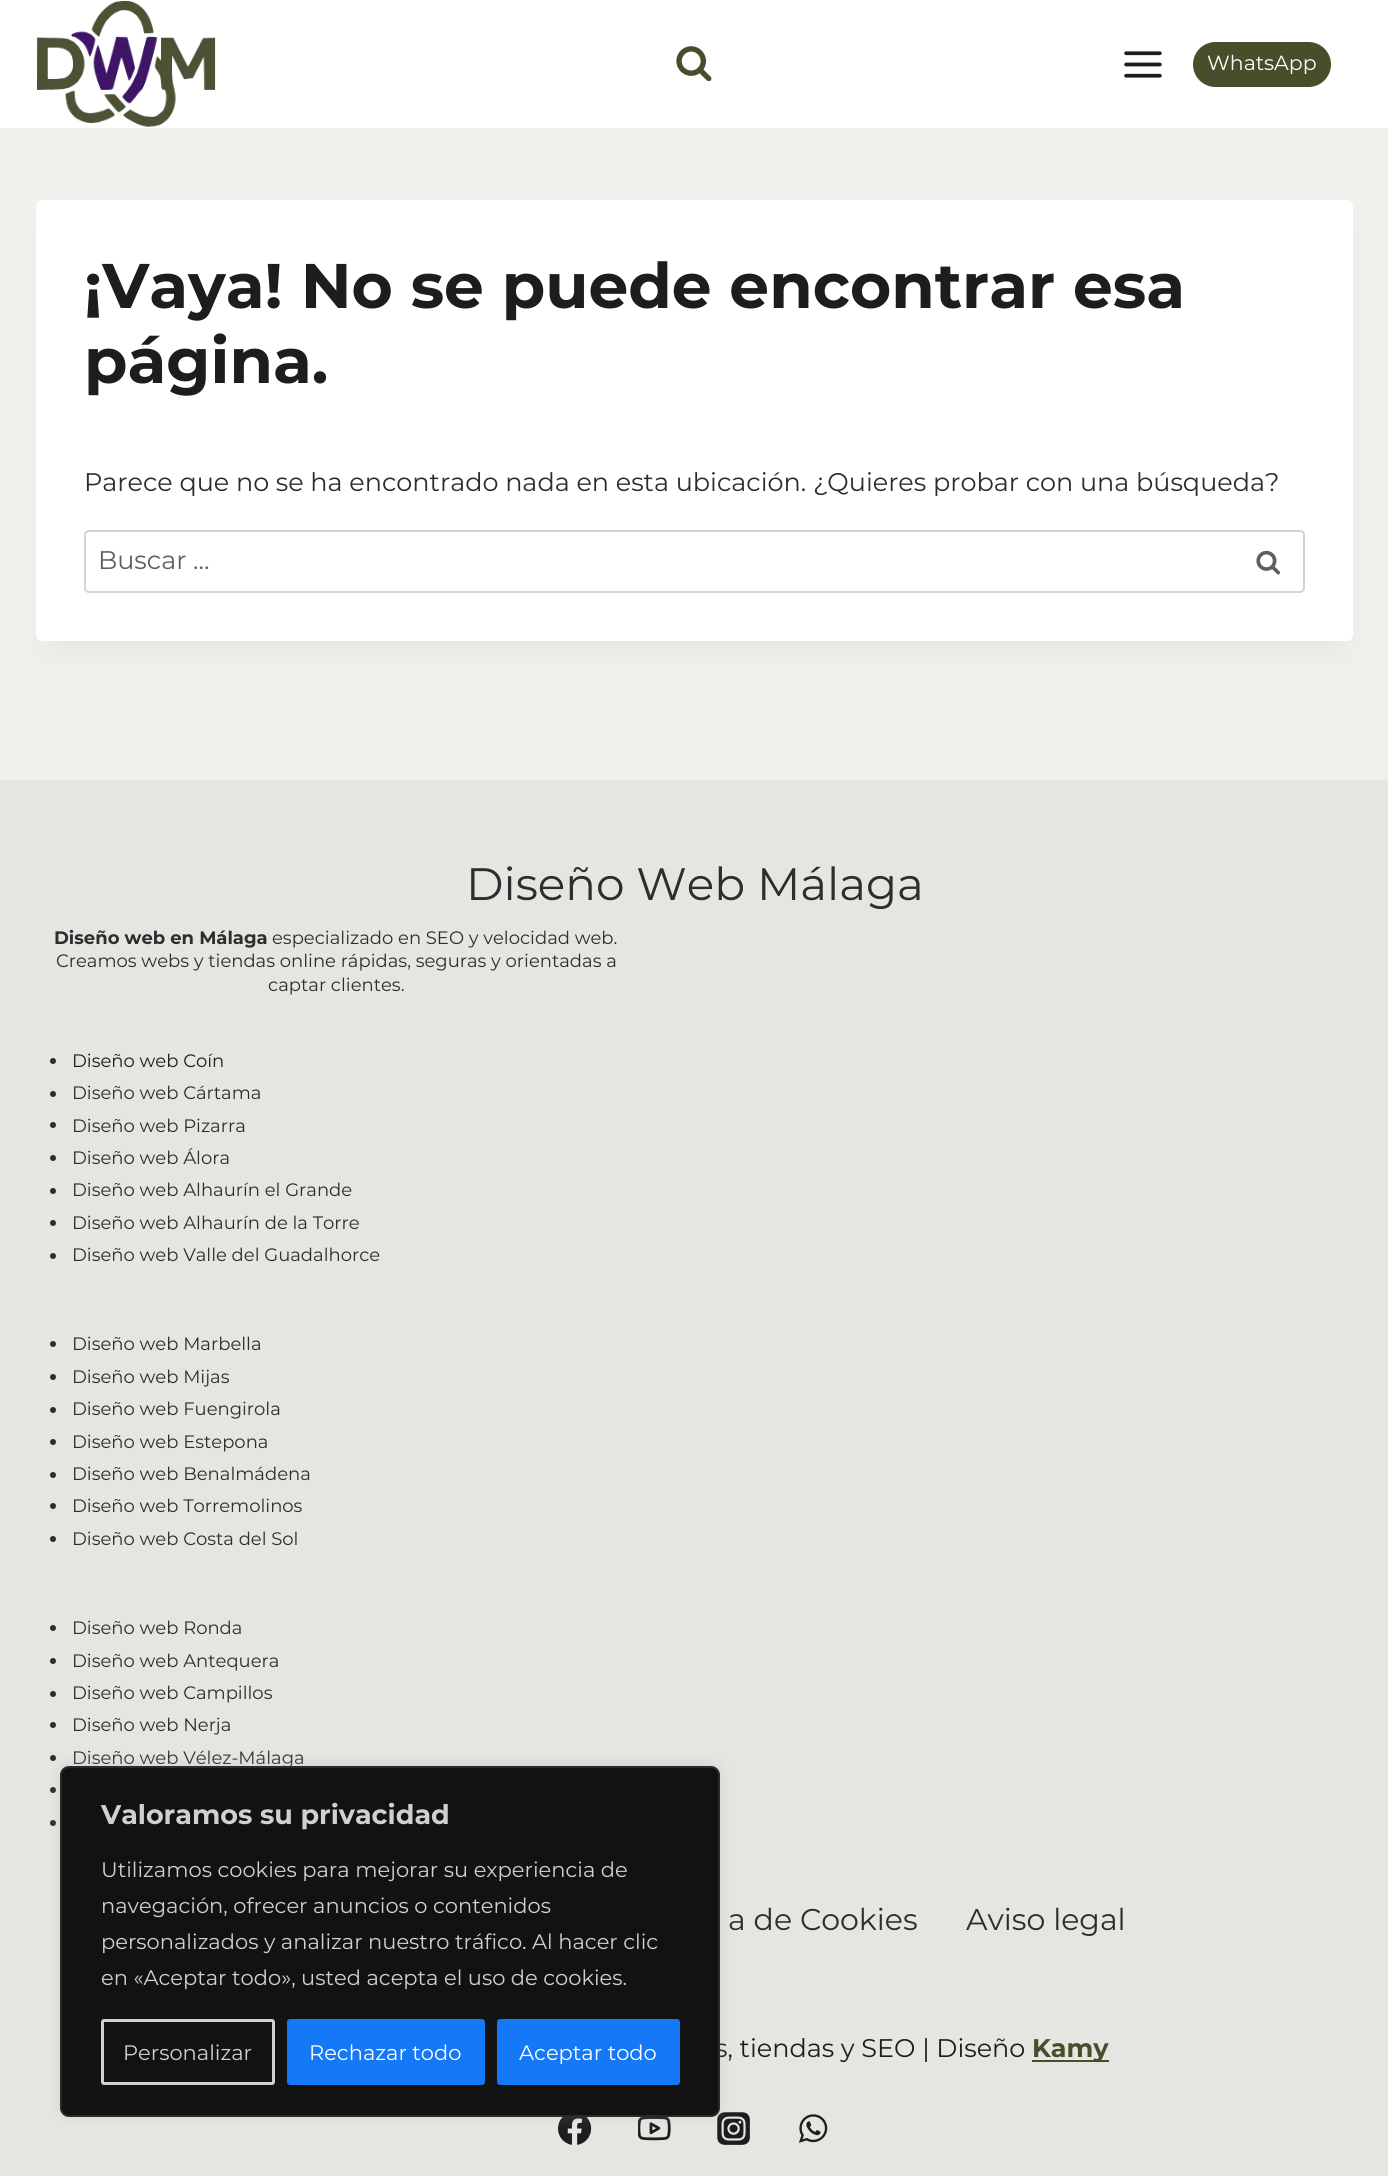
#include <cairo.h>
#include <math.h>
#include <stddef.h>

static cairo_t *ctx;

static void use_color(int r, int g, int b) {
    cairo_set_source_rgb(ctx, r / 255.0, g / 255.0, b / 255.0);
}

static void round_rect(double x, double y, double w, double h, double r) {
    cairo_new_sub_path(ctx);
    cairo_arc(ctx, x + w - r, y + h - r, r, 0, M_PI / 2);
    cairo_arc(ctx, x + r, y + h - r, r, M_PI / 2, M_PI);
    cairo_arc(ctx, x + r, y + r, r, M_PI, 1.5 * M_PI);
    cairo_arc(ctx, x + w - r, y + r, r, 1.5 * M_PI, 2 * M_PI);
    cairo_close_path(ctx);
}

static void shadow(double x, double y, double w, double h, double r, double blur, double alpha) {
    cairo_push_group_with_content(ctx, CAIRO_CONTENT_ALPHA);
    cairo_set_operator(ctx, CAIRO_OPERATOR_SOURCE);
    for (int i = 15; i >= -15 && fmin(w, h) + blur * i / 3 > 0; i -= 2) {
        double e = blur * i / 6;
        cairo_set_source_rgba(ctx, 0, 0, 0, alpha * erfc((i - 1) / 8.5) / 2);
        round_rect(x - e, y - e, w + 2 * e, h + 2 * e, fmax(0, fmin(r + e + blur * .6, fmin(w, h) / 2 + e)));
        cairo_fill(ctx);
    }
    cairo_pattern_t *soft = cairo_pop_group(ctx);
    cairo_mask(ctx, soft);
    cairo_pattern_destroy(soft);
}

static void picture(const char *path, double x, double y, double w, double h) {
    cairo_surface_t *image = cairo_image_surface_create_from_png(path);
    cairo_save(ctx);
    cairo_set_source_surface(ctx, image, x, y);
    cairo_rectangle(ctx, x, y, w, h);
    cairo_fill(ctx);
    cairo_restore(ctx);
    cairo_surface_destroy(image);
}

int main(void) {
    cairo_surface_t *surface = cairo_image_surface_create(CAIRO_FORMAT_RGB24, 1388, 2176);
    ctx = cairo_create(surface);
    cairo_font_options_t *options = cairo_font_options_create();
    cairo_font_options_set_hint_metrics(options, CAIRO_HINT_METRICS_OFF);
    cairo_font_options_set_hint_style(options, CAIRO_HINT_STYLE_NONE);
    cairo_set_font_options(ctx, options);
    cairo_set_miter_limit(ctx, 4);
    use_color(240, 240, 237);
    cairo_paint(ctx);
    use_color(255, 255, 255);
    cairo_rectangle(ctx, 0, 0, 1388, 128);
    cairo_fill(ctx);
    picture("img1.png", 37, 1, 179, 126);
    picture("img2.png", 676, 46, 36, 35);
    picture("img3.png", 1124, 51, 38, 27);
    use_color(71, 78, 43);
    round_rect(1193, 42, 138, 45, 22.5);
    cairo_fill(ctx);
    cairo_select_font_face(ctx, "Montserrat", CAIRO_FONT_SLANT_NORMAL, CAIRO_FONT_WEIGHT_NORMAL);
    cairo_set_font_size(ctx, 20.5);
    use_color(255, 255, 255);
    cairo_move_to(ctx, 1207, 70);
    cairo_show_text(ctx, "WhatsApp");
    use_color(0, 0, 0);
    shadow(51, 237, 1287, 411, 0, 19, 0.05);
    use_color(255, 255, 255);
    round_rect(36, 200, 1317, 441, 6);
    cairo_fill(ctx);
    cairo_select_font_face(ctx, "Montserrat", CAIRO_FONT_SLANT_NORMAL, CAIRO_FONT_WEIGHT_BOLD);
    cairo_set_font_size(ctx, 63);
    use_color(29, 29, 29);
    cairo_move_to(ctx, 84, 308);
    cairo_show_text(ctx, "¡Vaya! No se puede encontrar esa");
    cairo_move_to(ctx, 84, 383);
    cairo_show_text(ctx, "página.");
    cairo_select_font_face(ctx, "Montserrat", CAIRO_FONT_SLANT_NORMAL, CAIRO_FONT_WEIGHT_NORMAL);
    cairo_set_font_size(ctx, 25.5);
    use_color(45, 45, 45);
    cairo_move_to(ctx, 84, 491);
    cairo_show_text(ctx, "Parece que no se ha encontrado nada en esta ubicación. ¿Quieres probar con una búsqueda?");
    round_rect(85, 531, 1219, 61, 4);
    use_color(203, 213, 224);
    cairo_stroke(ctx);
    use_color(95, 95, 95);
    cairo_move_to(ctx, 98, 569);
    cairo_show_text(ctx, "Buscar …");
    picture("img4.png", 1256, 550, 25, 25);
    use_color(229, 230, 225);
    cairo_rectangle(ctx, 0, 780, 1388, 1396);
    cairo_fill(ctx);
    cairo_set_font_size(ctx, 45.4);
    use_color(45, 45, 45);
    cairo_move_to(ctx, 466, 900);
    cairo_show_text(ctx, "Diseño Web Málaga");
    cairo_select_font_face(ctx, "Montserrat", CAIRO_FONT_SLANT_NORMAL, CAIRO_FONT_WEIGHT_BOLD);
    cairo_set_font_size(ctx, 18);
    cairo_move_to(ctx, 54, 944);
    cairo_show_text(ctx, "Diseño web en Málaga");
    cairo_select_font_face(ctx, "Montserrat", CAIRO_FONT_SLANT_NORMAL, CAIRO_FONT_WEIGHT_NORMAL);
    cairo_move_to(ctx, 272, 944);
    cairo_show_text(ctx, "especializado en SEO y velocidad web.");
    cairo_move_to(ctx, 56, 967);
    cairo_show_text(ctx, "Creamos webs y tiendas online rápidas, seguras y orientadas a");
    cairo_move_to(ctx, 268, 991);
    cairo_show_text(ctx, "captar clientes.");
    cairo_new_path(ctx);
    cairo_arc(ctx, 53, 1061, 3, 0, 2 * M_PI);
    cairo_fill(ctx);
    use_color(29, 29, 29);
    cairo_move_to(ctx, 72, 1067);
    cairo_show_text(ctx, "Diseño web Coín");
    use_color(45, 45, 45);
    cairo_new_path(ctx);
    cairo_arc(ctx, 53, 1094, 3, 0, 2 * M_PI);
    cairo_fill(ctx);
    cairo_move_to(ctx, 72, 1099);
    cairo_show_text(ctx, "Diseño web Cártama");
    cairo_new_path(ctx);
    cairo_arc(ctx, 53, 1125, 3, 0, 2 * M_PI);
    cairo_fill(ctx);
    cairo_move_to(ctx, 72, 1132);
    cairo_show_text(ctx, "Diseño web Pizarra");
    cairo_new_path(ctx);
    cairo_arc(ctx, 53, 1158, 3, 0, 2 * M_PI);
    cairo_fill(ctx);
    cairo_move_to(ctx, 72, 1164);
    cairo_show_text(ctx, "Diseño web Álora");
    cairo_new_path(ctx);
    cairo_arc(ctx, 53, 1191, 3, 0, 2 * M_PI);
    cairo_fill(ctx);
    cairo_move_to(ctx, 72, 1196);
    cairo_show_text(ctx, "Diseño web Alhaurín el Grande");
    cairo_new_path(ctx);
    cairo_arc(ctx, 53, 1223, 3, 0, 2 * M_PI);
    cairo_fill(ctx);
    cairo_move_to(ctx, 72, 1229);
    cairo_show_text(ctx, "Diseño web Alhaurín de la Torre");
    cairo_new_path(ctx);
    cairo_arc(ctx, 53, 1256, 3, 0, 2 * M_PI);
    cairo_fill(ctx);
    cairo_move_to(ctx, 72, 1261);
    cairo_show_text(ctx, "Diseño web Valle del Guadalhorce");
    cairo_new_path(ctx);
    cairo_arc(ctx, 53, 1344, 3, 0, 2 * M_PI);
    cairo_fill(ctx);
    cairo_move_to(ctx, 72, 1350);
    cairo_show_text(ctx, "Diseño web Marbella");
    cairo_new_path(ctx);
    cairo_arc(ctx, 53, 1377, 3, 0, 2 * M_PI);
    cairo_fill(ctx);
    cairo_move_to(ctx, 72, 1383);
    cairo_show_text(ctx, "Diseño web Mijas");
    cairo_new_path(ctx);
    cairo_arc(ctx, 53, 1410, 3, 0, 2 * M_PI);
    cairo_fill(ctx);
    cairo_move_to(ctx, 72, 1415);
    cairo_show_text(ctx, "Diseño web Fuengirola");
    cairo_new_path(ctx);
    cairo_arc(ctx, 53, 1442, 3, 0, 2 * M_PI);
    cairo_fill(ctx);
    cairo_move_to(ctx, 72, 1448);
    cairo_show_text(ctx, "Diseño web Estepona");
    cairo_new_path(ctx);
    cairo_arc(ctx, 53, 1475, 3, 0, 2 * M_PI);
    cairo_fill(ctx);
    cairo_move_to(ctx, 72, 1480);
    cairo_show_text(ctx, "Diseño web Benalmádena");
    cairo_new_path(ctx);
    cairo_arc(ctx, 53, 1506, 3, 0, 2 * M_PI);
    cairo_fill(ctx);
    cairo_move_to(ctx, 72, 1512);
    cairo_show_text(ctx, "Diseño web Torremolinos");
    cairo_new_path(ctx);
    cairo_arc(ctx, 53, 1539, 3, 0, 2 * M_PI);
    cairo_fill(ctx);
    cairo_move_to(ctx, 72, 1545);
    cairo_show_text(ctx, "Diseño web Costa del Sol");
    cairo_new_path(ctx);
    cairo_arc(ctx, 53, 1628, 3, 0, 2 * M_PI);
    cairo_fill(ctx);
    cairo_move_to(ctx, 72, 1634);
    cairo_show_text(ctx, "Diseño web Ronda");
    cairo_new_path(ctx);
    cairo_arc(ctx, 53, 1661, 3, 0, 2 * M_PI);
    cairo_fill(ctx);
    cairo_move_to(ctx, 72, 1667);
    cairo_show_text(ctx, "Diseño web Antequera");
    cairo_new_path(ctx);
    cairo_arc(ctx, 53, 1694, 3, 0, 2 * M_PI);
    cairo_fill(ctx);
    cairo_move_to(ctx, 72, 1699);
    cairo_show_text(ctx, "Diseño web Campillos");
    cairo_new_path(ctx);
    cairo_arc(ctx, 53, 1725, 3, 0, 2 * M_PI);
    cairo_fill(ctx);
    cairo_move_to(ctx, 72, 1731);
    cairo_show_text(ctx, "Diseño web Nerja");
    cairo_new_path(ctx);
    cairo_arc(ctx, 53, 1758, 3, 0, 2 * M_PI);
    cairo_fill(ctx);
    cairo_move_to(ctx, 72, 1764);
    cairo_show_text(ctx, "Diseño web Vélez-Málaga");
    cairo_new_path(ctx);
    cairo_arc(ctx, 53, 1790, 3, 0, 2 * M_PI);
    cairo_fill(ctx);
    cairo_arc(ctx, 53, 1823, 3, 0, 2 * M_PI);
    cairo_fill(ctx);
    cairo_set_font_size(ctx, 30);
    cairo_move_to(ctx, 728, 1930);
    cairo_show_text(ctx, "a de Cookies");
    cairo_move_to(ctx, 966, 1930);
    cairo_show_text(ctx, "Aviso legal");
    cairo_set_font_size(ctx, 25.5);
    use_color(29, 29, 29);
    cairo_move_to(ctx, 715, 2057);
    cairo_show_text(ctx, "s, tiendas y SEO | Diseño");
    use_color(71, 78, 43);
    cairo_rectangle(ctx, 1032, 2060, 77, 2);
    cairo_fill(ctx);
    cairo_select_font_face(ctx, "Montserrat", CAIRO_FONT_SLANT_NORMAL, CAIRO_FONT_WEIGHT_BOLD);
    cairo_move_to(ctx, 1032, 2057);
    cairo_show_text(ctx, "Kamy");
    picture("img5.png", 558, 2117, 34, 28);
    picture("img6.png", 638, 2117, 33, 24);
    picture("img7.png", 717, 2112, 33, 33);
    picture("img8.png", 798, 2114, 30, 29);
    use_color(172, 171, 171);
    shadow(60, 1764, 660, 351, 9, 7.5, 0.3);
    use_color(18, 18, 18);
    round_rect(61, 1767, 658, 349, 8);
    cairo_fill_preserve(ctx);
    use_color(42, 42, 42);
    cairo_stroke(ctx);
    cairo_set_font_size(ctx, 27);
    use_color(208, 208, 208);
    cairo_move_to(ctx, 101, 1824);
    cairo_show_text(ctx, "Valoramos su privacidad");
    cairo_select_font_face(ctx, "Montserrat", CAIRO_FONT_SLANT_NORMAL, CAIRO_FONT_WEIGHT_NORMAL);
    cairo_set_font_size(ctx, 21);
    cairo_move_to(ctx, 101, 1877);
    cairo_show_text(ctx, "Utilizamos cookies para mejorar su experiencia de");
    cairo_move_to(ctx, 101, 1913);
    cairo_show_text(ctx, "navegación, ofrecer anuncios o contenidos");
    cairo_move_to(ctx, 101, 1949);
    cairo_show_text(ctx, "personalizados y analizar nuestro tráfico. Al hacer clic");
    cairo_move_to(ctx, 101, 1985);
    cairo_show_text(ctx, "en «Aceptar todo», usted acepta el uso de cookies.");
    round_rect(102.5, 2020.5, 171, 63, 1.5);
    cairo_set_line_width(ctx, 3);
    cairo_stroke(ctx);
    cairo_move_to(ctx, 123, 2060);
    cairo_show_text(ctx, "Personalizar");
    use_color(21, 120, 247);
    round_rect(288.5, 2020.5, 195, 63, 1.5);
    cairo_fill_preserve(ctx);
    cairo_stroke(ctx);
    use_color(255, 255, 255);
    cairo_move_to(ctx, 309, 2060);
    cairo_show_text(ctx, "Rechazar todo");
    use_color(21, 120, 247);
    round_rect(498.5, 2020.5, 180, 63, 1.5);
    cairo_fill_preserve(ctx);
    cairo_stroke(ctx);
    use_color(255, 255, 255);
    cairo_move_to(ctx, 519, 2060);
    cairo_show_text(ctx, "Aceptar todo");
    cairo_surface_write_to_png(surface, "result.png");
    cairo_font_options_destroy(options);
    cairo_destroy(ctx);
    cairo_surface_destroy(surface);
    return 0;
}
